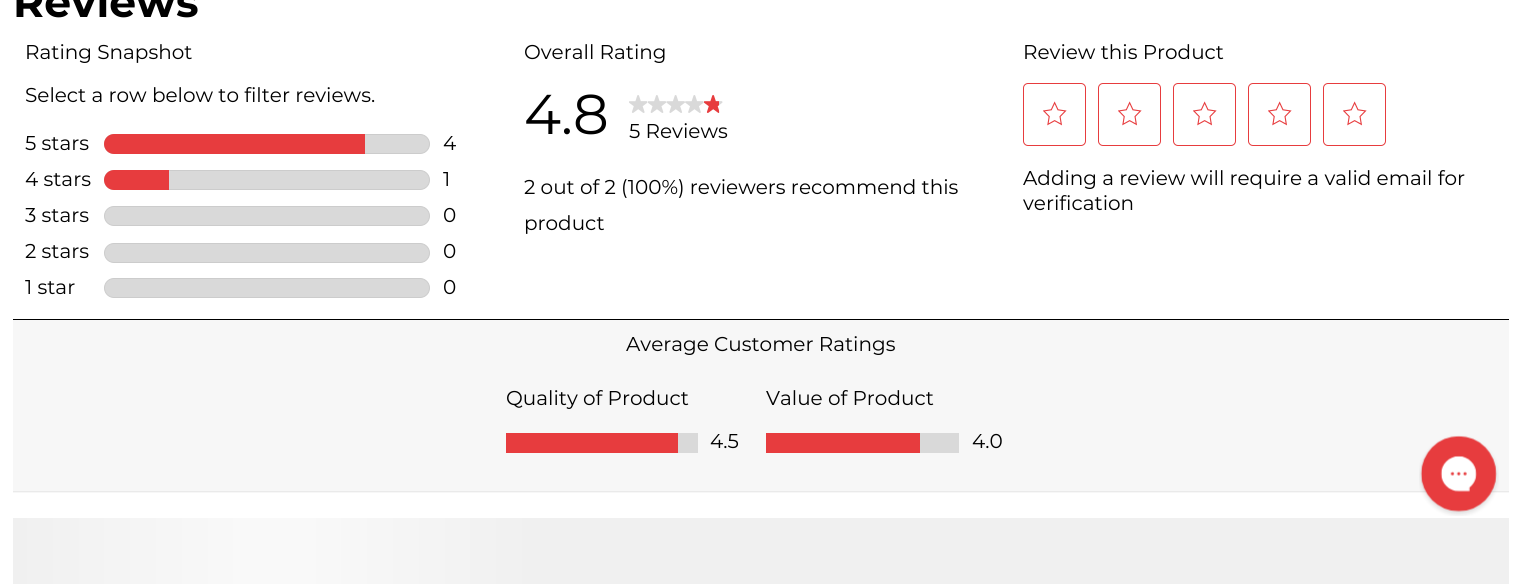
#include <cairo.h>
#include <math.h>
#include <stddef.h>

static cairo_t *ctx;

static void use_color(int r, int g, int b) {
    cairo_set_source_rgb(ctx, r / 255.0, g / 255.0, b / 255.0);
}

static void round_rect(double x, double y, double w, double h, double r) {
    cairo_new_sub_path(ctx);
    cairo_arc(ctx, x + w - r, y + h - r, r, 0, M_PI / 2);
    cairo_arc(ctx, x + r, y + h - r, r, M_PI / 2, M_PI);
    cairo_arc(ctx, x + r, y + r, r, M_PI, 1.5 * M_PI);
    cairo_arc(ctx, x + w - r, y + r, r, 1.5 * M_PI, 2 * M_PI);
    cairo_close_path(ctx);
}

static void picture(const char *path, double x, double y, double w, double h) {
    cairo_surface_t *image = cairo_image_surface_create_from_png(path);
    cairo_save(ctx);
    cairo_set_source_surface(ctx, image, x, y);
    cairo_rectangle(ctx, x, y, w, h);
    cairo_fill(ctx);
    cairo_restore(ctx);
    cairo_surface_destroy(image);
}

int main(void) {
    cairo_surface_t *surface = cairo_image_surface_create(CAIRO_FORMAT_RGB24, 1521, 584);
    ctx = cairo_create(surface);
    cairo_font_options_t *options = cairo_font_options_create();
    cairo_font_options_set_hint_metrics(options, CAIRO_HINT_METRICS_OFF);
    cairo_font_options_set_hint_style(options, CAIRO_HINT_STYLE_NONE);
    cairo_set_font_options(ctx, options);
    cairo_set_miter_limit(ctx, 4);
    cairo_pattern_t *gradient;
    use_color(255, 255, 255);
    cairo_paint(ctx);
    cairo_select_font_face(ctx, "Montserrat", CAIRO_FONT_SLANT_NORMAL, CAIRO_FONT_WEIGHT_BOLD);
    cairo_set_font_size(ctx, 42.5);
    use_color(0, 0, 0);
    cairo_move_to(ctx, 13, 17);
    cairo_show_text(ctx, "Reviews");
    cairo_rectangle(ctx, 13, 319, 1496, 1);
    cairo_fill(ctx);
    cairo_select_font_face(ctx, "Montserrat", CAIRO_FONT_SLANT_NORMAL, CAIRO_FONT_WEIGHT_NORMAL);
    cairo_set_font_size(ctx, 20);
    cairo_move_to(ctx, 25, 59);
    cairo_show_text(ctx, "Rating Snapshot");
    cairo_move_to(ctx, 25, 102);
    cairo_show_text(ctx, "Select a row below to filter reviews.");
    cairo_move_to(ctx, 25, 150);
    cairo_show_text(ctx, "5 stars");
    use_color(217, 217, 217);
    round_rect(104.5, 134.5, 325, 19, 9.5);
    cairo_fill_preserve(ctx);
    use_color(204, 204, 204);
    cairo_set_line_width(ctx, 1);
    cairo_stroke(ctx);
    use_color(231, 60, 62);
    cairo_new_path(ctx);
    cairo_move_to(ctx, 114, 134);
    cairo_line_to(ctx, 365, 134);
    cairo_line_to(ctx, 365, 154);
    cairo_line_to(ctx, 114, 154);
    cairo_curve_to(ctx, 108.5, 154, 104, 149.5, 104, 144);
    cairo_curve_to(ctx, 104, 138.5, 108.5, 134, 114, 134);
    cairo_close_path(ctx);
    cairo_fill(ctx);
    use_color(0, 0, 0);
    cairo_move_to(ctx, 443, 150);
    cairo_show_text(ctx, "4");
    cairo_move_to(ctx, 25, 186);
    cairo_show_text(ctx, "4 stars");
    use_color(217, 217, 217);
    round_rect(104.5, 170.5, 325, 19, 9.5);
    cairo_fill_preserve(ctx);
    use_color(204, 204, 204);
    cairo_stroke(ctx);
    use_color(231, 60, 62);
    cairo_new_path(ctx);
    cairo_move_to(ctx, 114, 170);
    cairo_line_to(ctx, 169, 170);
    cairo_line_to(ctx, 169, 190);
    cairo_line_to(ctx, 114, 190);
    cairo_curve_to(ctx, 108.5, 190, 104, 185.5, 104, 180);
    cairo_curve_to(ctx, 104, 174.5, 108.5, 170, 114, 170);
    cairo_close_path(ctx);
    cairo_fill(ctx);
    use_color(0, 0, 0);
    cairo_move_to(ctx, 443, 186);
    cairo_show_text(ctx, "1");
    cairo_move_to(ctx, 25, 222);
    cairo_show_text(ctx, "3 stars");
    use_color(217, 217, 217);
    round_rect(104.5, 206.5, 325, 19, 9.5);
    cairo_fill_preserve(ctx);
    use_color(204, 204, 204);
    cairo_stroke(ctx);
    use_color(0, 0, 0);
    cairo_move_to(ctx, 443, 222);
    cairo_show_text(ctx, "0");
    cairo_move_to(ctx, 25, 258);
    cairo_show_text(ctx, "2 stars");
    use_color(217, 217, 217);
    round_rect(104.5, 243.5, 325, 19, 9.5);
    cairo_fill_preserve(ctx);
    use_color(204, 204, 204);
    cairo_stroke(ctx);
    use_color(0, 0, 0);
    cairo_move_to(ctx, 443, 258);
    cairo_show_text(ctx, "0");
    cairo_move_to(ctx, 25, 294);
    cairo_show_text(ctx, "1 star");
    use_color(217, 217, 217);
    round_rect(104.5, 278.5, 325, 19, 9.5);
    cairo_fill_preserve(ctx);
    use_color(204, 204, 204);
    cairo_stroke(ctx);
    use_color(0, 0, 0);
    cairo_move_to(ctx, 443, 294);
    cairo_show_text(ctx, "0");
    cairo_move_to(ctx, 524, 59);
    cairo_show_text(ctx, "Overall Rating");
    cairo_set_font_size(ctx, 56);
    cairo_move_to(ctx, 524, 134);
    cairo_show_text(ctx, "4.8");
    picture("img1.png", 629, 95, 19, 18);
    picture("img2.png", 648, 95, 18, 18);
    picture("img3.png", 666, 95, 19, 18);
    picture("img4.png", 685, 95, 19, 18);
    picture("img5.png", 704, 95, 19, 18);
    cairo_set_font_size(ctx, 20);
    cairo_move_to(ctx, 629, 138);
    cairo_show_text(ctx, "5 Reviews");
    cairo_move_to(ctx, 524, 194);
    cairo_show_text(ctx, "2 out of 2 (100%) reviewers recommend this");
    cairo_move_to(ctx, 524, 230);
    cairo_show_text(ctx, "product");
    cairo_move_to(ctx, 1023, 59);
    cairo_show_text(ctx, "Review this Product");
    round_rect(1023.5, 83.5, 62, 62, 4.5);
    use_color(231, 60, 62);
    cairo_stroke(ctx);
    picture("img6.png", 1043, 101, 24, 25);
    round_rect(1098.5, 83.5, 62, 62, 4.5);
    cairo_stroke(ctx);
    picture("img6.png", 1118, 101, 24, 25);
    round_rect(1173.5, 83.5, 62, 62, 4.5);
    cairo_stroke(ctx);
    picture("img6.png", 1193, 101, 24, 25);
    round_rect(1248.5, 83.5, 62, 62, 4.5);
    cairo_stroke(ctx);
    picture("img6.png", 1268, 101, 24, 25);
    round_rect(1323.5, 83.5, 62, 62, 4.5);
    cairo_stroke(ctx);
    picture("img6.png", 1343, 101, 24, 25);
    use_color(0, 0, 0);
    cairo_move_to(ctx, 1023, 185);
    cairo_show_text(ctx, "Adding a review will require a valid email for");
    cairo_move_to(ctx, 1023, 210);
    cairo_show_text(ctx, "verification");
    use_color(247, 247, 247);
    cairo_rectangle(ctx, 13, 320, 1496, 173);
    cairo_fill(ctx);
    use_color(234, 234, 234);
    cairo_rectangle(ctx, 13, 491, 1496, 1);
    cairo_fill(ctx);
    use_color(0, 0, 0);
    cairo_move_to(ctx, 626, 351);
    cairo_show_text(ctx, "Average Customer Ratings");
    cairo_move_to(ctx, 506, 405);
    cairo_show_text(ctx, "Quality of Product");
    use_color(217, 217, 217);
    cairo_rectangle(ctx, 678, 433, 20, 20);
    cairo_fill(ctx);
    use_color(231, 60, 62);
    cairo_rectangle(ctx, 506, 433, 172, 20);
    cairo_fill(ctx);
    use_color(0, 0, 0);
    cairo_move_to(ctx, 710, 448);
    cairo_show_text(ctx, "4.5");
    cairo_move_to(ctx, 766, 405);
    cairo_show_text(ctx, "Value of Product");
    use_color(217, 217, 217);
    cairo_rectangle(ctx, 920, 433, 39, 20);
    cairo_fill(ctx);
    use_color(231, 60, 62);
    cairo_rectangle(ctx, 766, 433, 154, 20);
    cairo_fill(ctx);
    use_color(0, 0, 0);
    cairo_move_to(ctx, 972, 448);
    cairo_show_text(ctx, "4.0");
    use_color(240, 240, 240);
    cairo_rectangle(ctx, 13, 518, 1496, 66);
    cairo_fill(ctx);
    gradient = cairo_pattern_create_linear(13, 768, 536, 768);
    cairo_pattern_add_color_stop_rgba(gradient, 0, 0.941, 0.941, 0.941, 1);
    cairo_pattern_add_color_stop_rgba(gradient, 0.44, 0.976, 0.976, 0.976, 1);
    cairo_pattern_add_color_stop_rgba(gradient, 0.56, 0.976, 0.976, 0.976, 1);
    cairo_pattern_add_color_stop_rgba(gradient, 1, 0.941, 0.941, 0.941, 1);
    cairo_set_source(ctx, gradient);
    cairo_pattern_destroy(gradient);
    cairo_new_path(ctx);
    cairo_move_to(ctx, 19, 518);
    cairo_line_to(ctx, 536, 518);
    cairo_line_to(ctx, 536, 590);
    cairo_line_to(ctx, 19, 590);
    cairo_curve_to(ctx, 15.5, 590, 13, 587.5, 13, 584);
    cairo_line_to(ctx, 13, 524);
    cairo_curve_to(ctx, 13, 520.5, 15.5, 518, 19, 518);
    cairo_close_path(ctx);
    cairo_fill(ctx);
    picture("img7.png", 1419, 435, 80, 81);
    cairo_surface_write_to_png(surface, "result.png");
    cairo_font_options_destroy(options);
    cairo_destroy(ctx);
    cairo_surface_destroy(surface);
    return 0;
}
